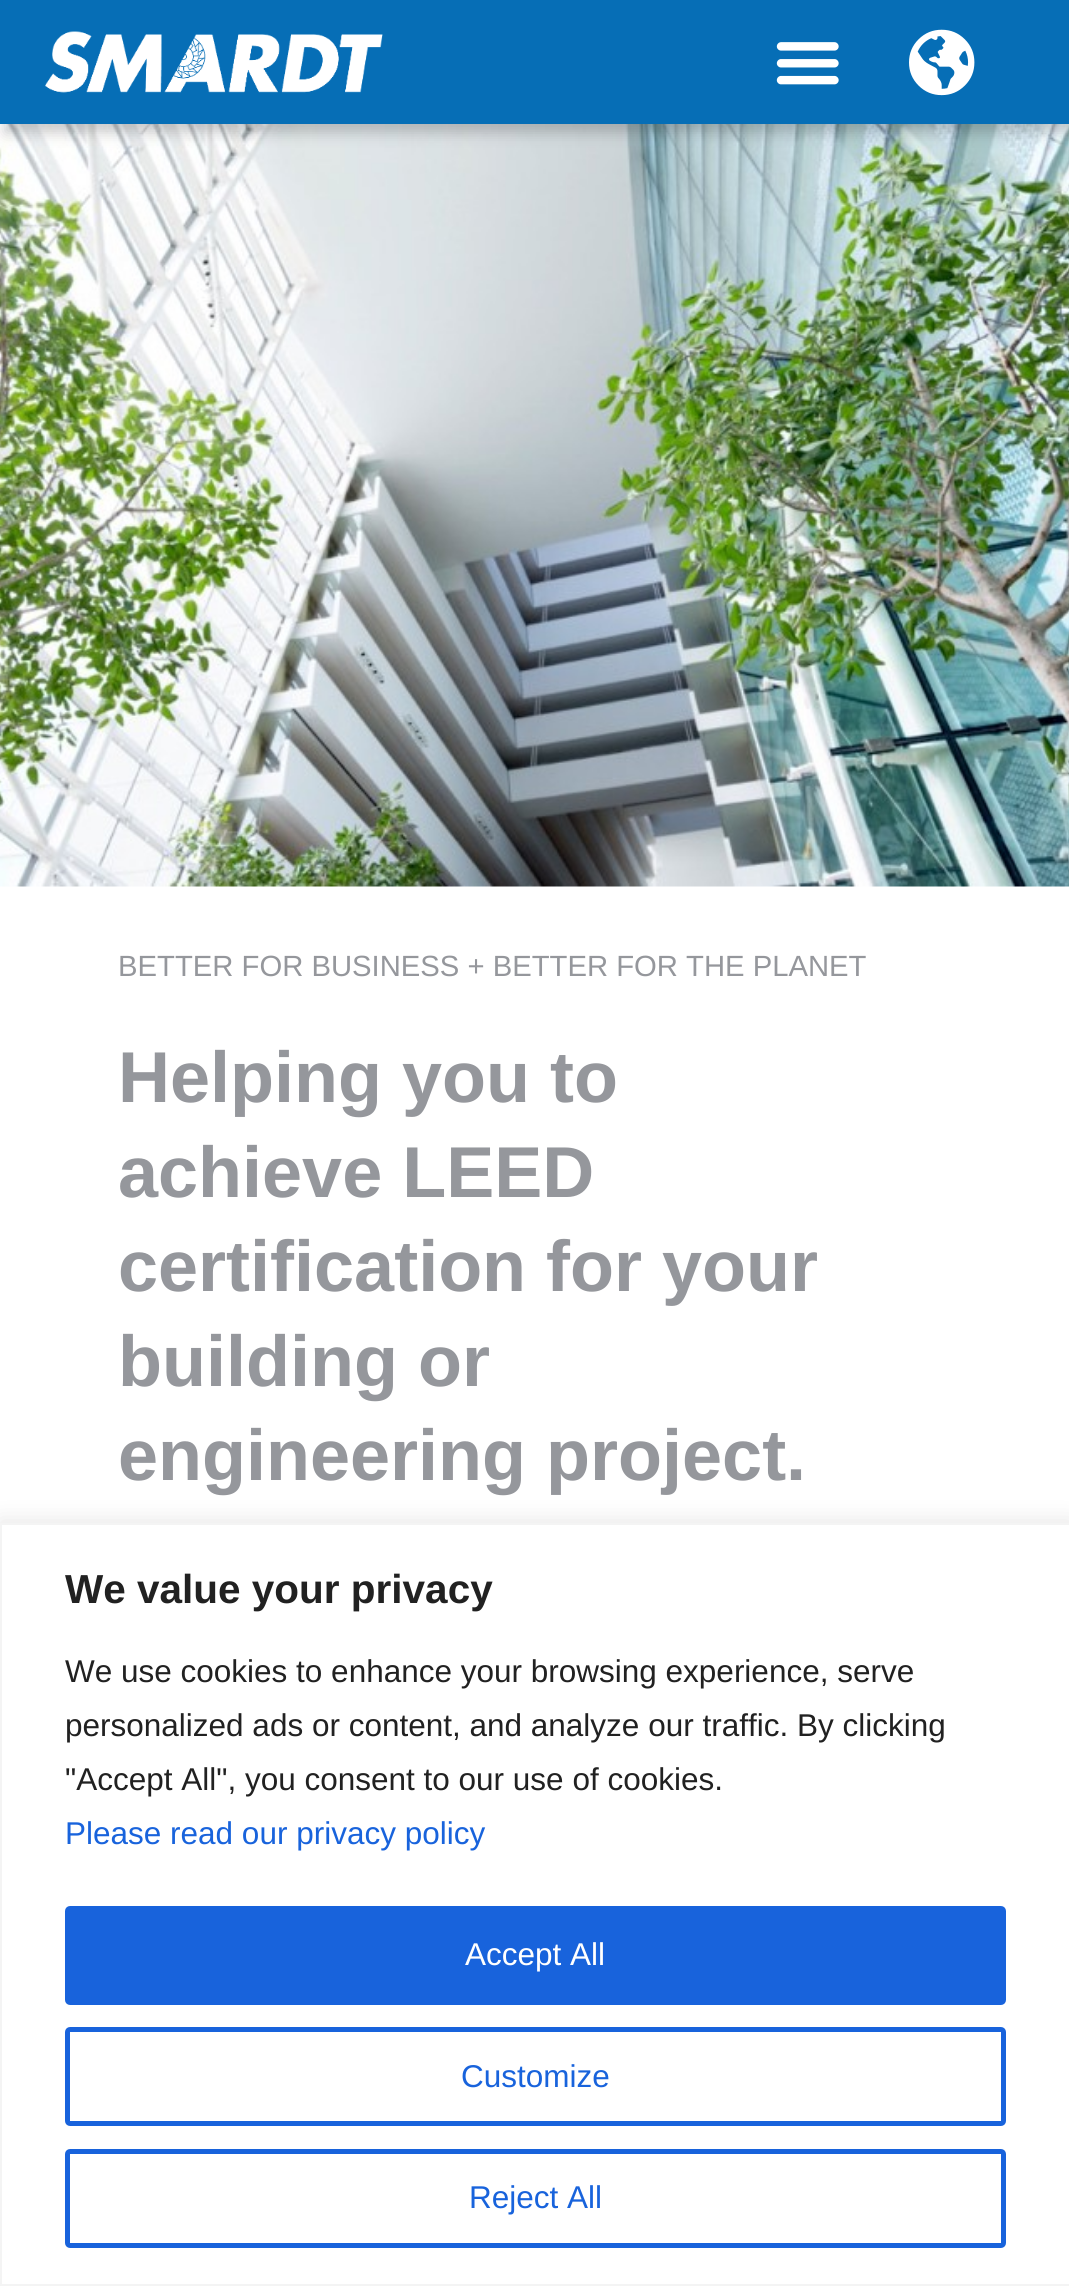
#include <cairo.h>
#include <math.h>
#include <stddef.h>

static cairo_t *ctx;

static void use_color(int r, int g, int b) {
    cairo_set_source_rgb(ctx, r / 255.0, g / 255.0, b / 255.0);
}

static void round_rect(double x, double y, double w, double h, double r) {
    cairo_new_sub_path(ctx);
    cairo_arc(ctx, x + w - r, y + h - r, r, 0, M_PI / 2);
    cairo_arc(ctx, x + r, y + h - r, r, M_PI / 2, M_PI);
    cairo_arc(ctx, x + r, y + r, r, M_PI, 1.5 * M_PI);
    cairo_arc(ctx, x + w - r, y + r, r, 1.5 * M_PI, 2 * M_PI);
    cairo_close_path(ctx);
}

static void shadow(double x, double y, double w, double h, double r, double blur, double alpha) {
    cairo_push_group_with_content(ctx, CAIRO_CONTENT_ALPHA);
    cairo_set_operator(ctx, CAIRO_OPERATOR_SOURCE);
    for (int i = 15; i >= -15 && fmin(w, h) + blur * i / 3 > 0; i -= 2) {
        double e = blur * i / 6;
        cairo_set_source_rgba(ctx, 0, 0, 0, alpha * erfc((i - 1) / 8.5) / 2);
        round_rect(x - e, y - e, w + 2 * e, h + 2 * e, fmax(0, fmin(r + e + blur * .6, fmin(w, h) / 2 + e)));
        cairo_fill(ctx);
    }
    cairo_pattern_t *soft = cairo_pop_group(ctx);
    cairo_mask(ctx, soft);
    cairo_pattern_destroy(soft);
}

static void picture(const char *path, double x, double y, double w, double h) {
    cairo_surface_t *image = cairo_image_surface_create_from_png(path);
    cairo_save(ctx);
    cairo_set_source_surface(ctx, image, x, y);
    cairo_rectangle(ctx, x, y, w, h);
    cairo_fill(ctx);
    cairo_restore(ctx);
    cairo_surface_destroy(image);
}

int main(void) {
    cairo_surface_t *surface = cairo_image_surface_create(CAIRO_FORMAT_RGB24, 1069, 2286);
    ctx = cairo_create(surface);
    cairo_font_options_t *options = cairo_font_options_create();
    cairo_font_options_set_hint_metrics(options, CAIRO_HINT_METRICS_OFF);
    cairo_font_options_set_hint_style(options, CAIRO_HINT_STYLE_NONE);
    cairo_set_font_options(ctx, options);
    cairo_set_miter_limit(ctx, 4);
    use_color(255, 255, 255);
    cairo_paint(ctx);
    picture("img4.png", 0, 124, 1069, 763);
    use_color(0, 0, 0);
    shadow(5, 9, 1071, 124, 0, 7, 0.2);
    use_color(6, 110, 182);
    cairo_rectangle(ctx, 0, 0, 1069, 124);
    cairo_fill(ctx);
    picture("img1.png", 45, 31, 338, 62);
    picture("img2.png", 776, 42, 63, 43);
    picture("img3.png", 909, 29, 66, 67);
    cairo_select_font_face(ctx, "Liberation Sans", CAIRO_FONT_SLANT_NORMAL, CAIRO_FONT_WEIGHT_NORMAL);
    cairo_set_font_size(ctx, 29.25);
    use_color(149, 151, 156);
    cairo_move_to(ctx, 118, 976);
    cairo_show_text(ctx, "BETTER FOR BUSINESS + BETTER FOR THE PLANET");
    cairo_select_font_face(ctx, "Liberation Sans", CAIRO_FONT_SLANT_NORMAL, CAIRO_FONT_WEIGHT_BOLD);
    cairo_set_font_size(ctx, 72);
    cairo_move_to(ctx, 118, 1102);
    cairo_show_text(ctx, "Helping you to");
    cairo_move_to(ctx, 118, 1197);
    cairo_show_text(ctx, "achieve LEED");
    cairo_move_to(ctx, 118, 1291);
    cairo_show_text(ctx, "certification for your");
    cairo_move_to(ctx, 118, 1386);
    cairo_show_text(ctx, "building or");
    cairo_move_to(ctx, 118, 1480);
    cairo_show_text(ctx, "engineering project.");
    use_color(172, 171, 171);
    shadow(0, 1521, 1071, 763, 0, 11, 0.3);
    use_color(255, 255, 255);
    cairo_rectangle(ctx, 1, 1524, 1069, 761);
    cairo_fill_preserve(ctx);
    use_color(244, 244, 244);
    cairo_stroke(ctx);
    cairo_set_font_size(ctx, 40.5);
    use_color(33, 33, 33);
    cairo_move_to(ctx, 65, 1603);
    cairo_show_text(ctx, "We value your privacy");
    cairo_select_font_face(ctx, "Liberation Sans", CAIRO_FONT_SLANT_NORMAL, CAIRO_FONT_WEIGHT_NORMAL);
    cairo_set_font_size(ctx, 31.5);
    cairo_move_to(ctx, 65, 1682);
    cairo_show_text(ctx, "We use cookies to enhance your browsing experience, serve");
    cairo_move_to(ctx, 65, 1736);
    cairo_show_text(ctx, "personalized ads or content, and analyze our traffic. By clicking");
    cairo_move_to(ctx, 65, 1790);
    cairo_show_text(ctx, "\"Accept All\", you consent to our use of cookies.");
    use_color(24, 99, 220);
    cairo_move_to(ctx, 65, 1844);
    cairo_show_text(ctx, "Please read our privacy policy");
    round_rect(67.5, 1908.5, 936, 94, 2.5);
    cairo_fill_preserve(ctx);
    cairo_set_line_width(ctx, 5);
    cairo_stroke(ctx);
    use_color(255, 255, 255);
    cairo_move_to(ctx, 465, 1965);
    cairo_show_text(ctx, "Accept All");
    round_rect(67.5, 2029.5, 936, 94, 2.5);
    use_color(24, 99, 220);
    cairo_stroke(ctx);
    cairo_move_to(ctx, 461, 2087);
    cairo_show_text(ctx, "Customize");
    round_rect(67.5, 2151.5, 936, 94, 2.5);
    cairo_stroke(ctx);
    cairo_move_to(ctx, 469, 2208);
    cairo_show_text(ctx, "Reject All");
    cairo_surface_write_to_png(surface, "result.png");
    cairo_font_options_destroy(options);
    cairo_destroy(ctx);
    cairo_surface_destroy(surface);
    return 0;
}
